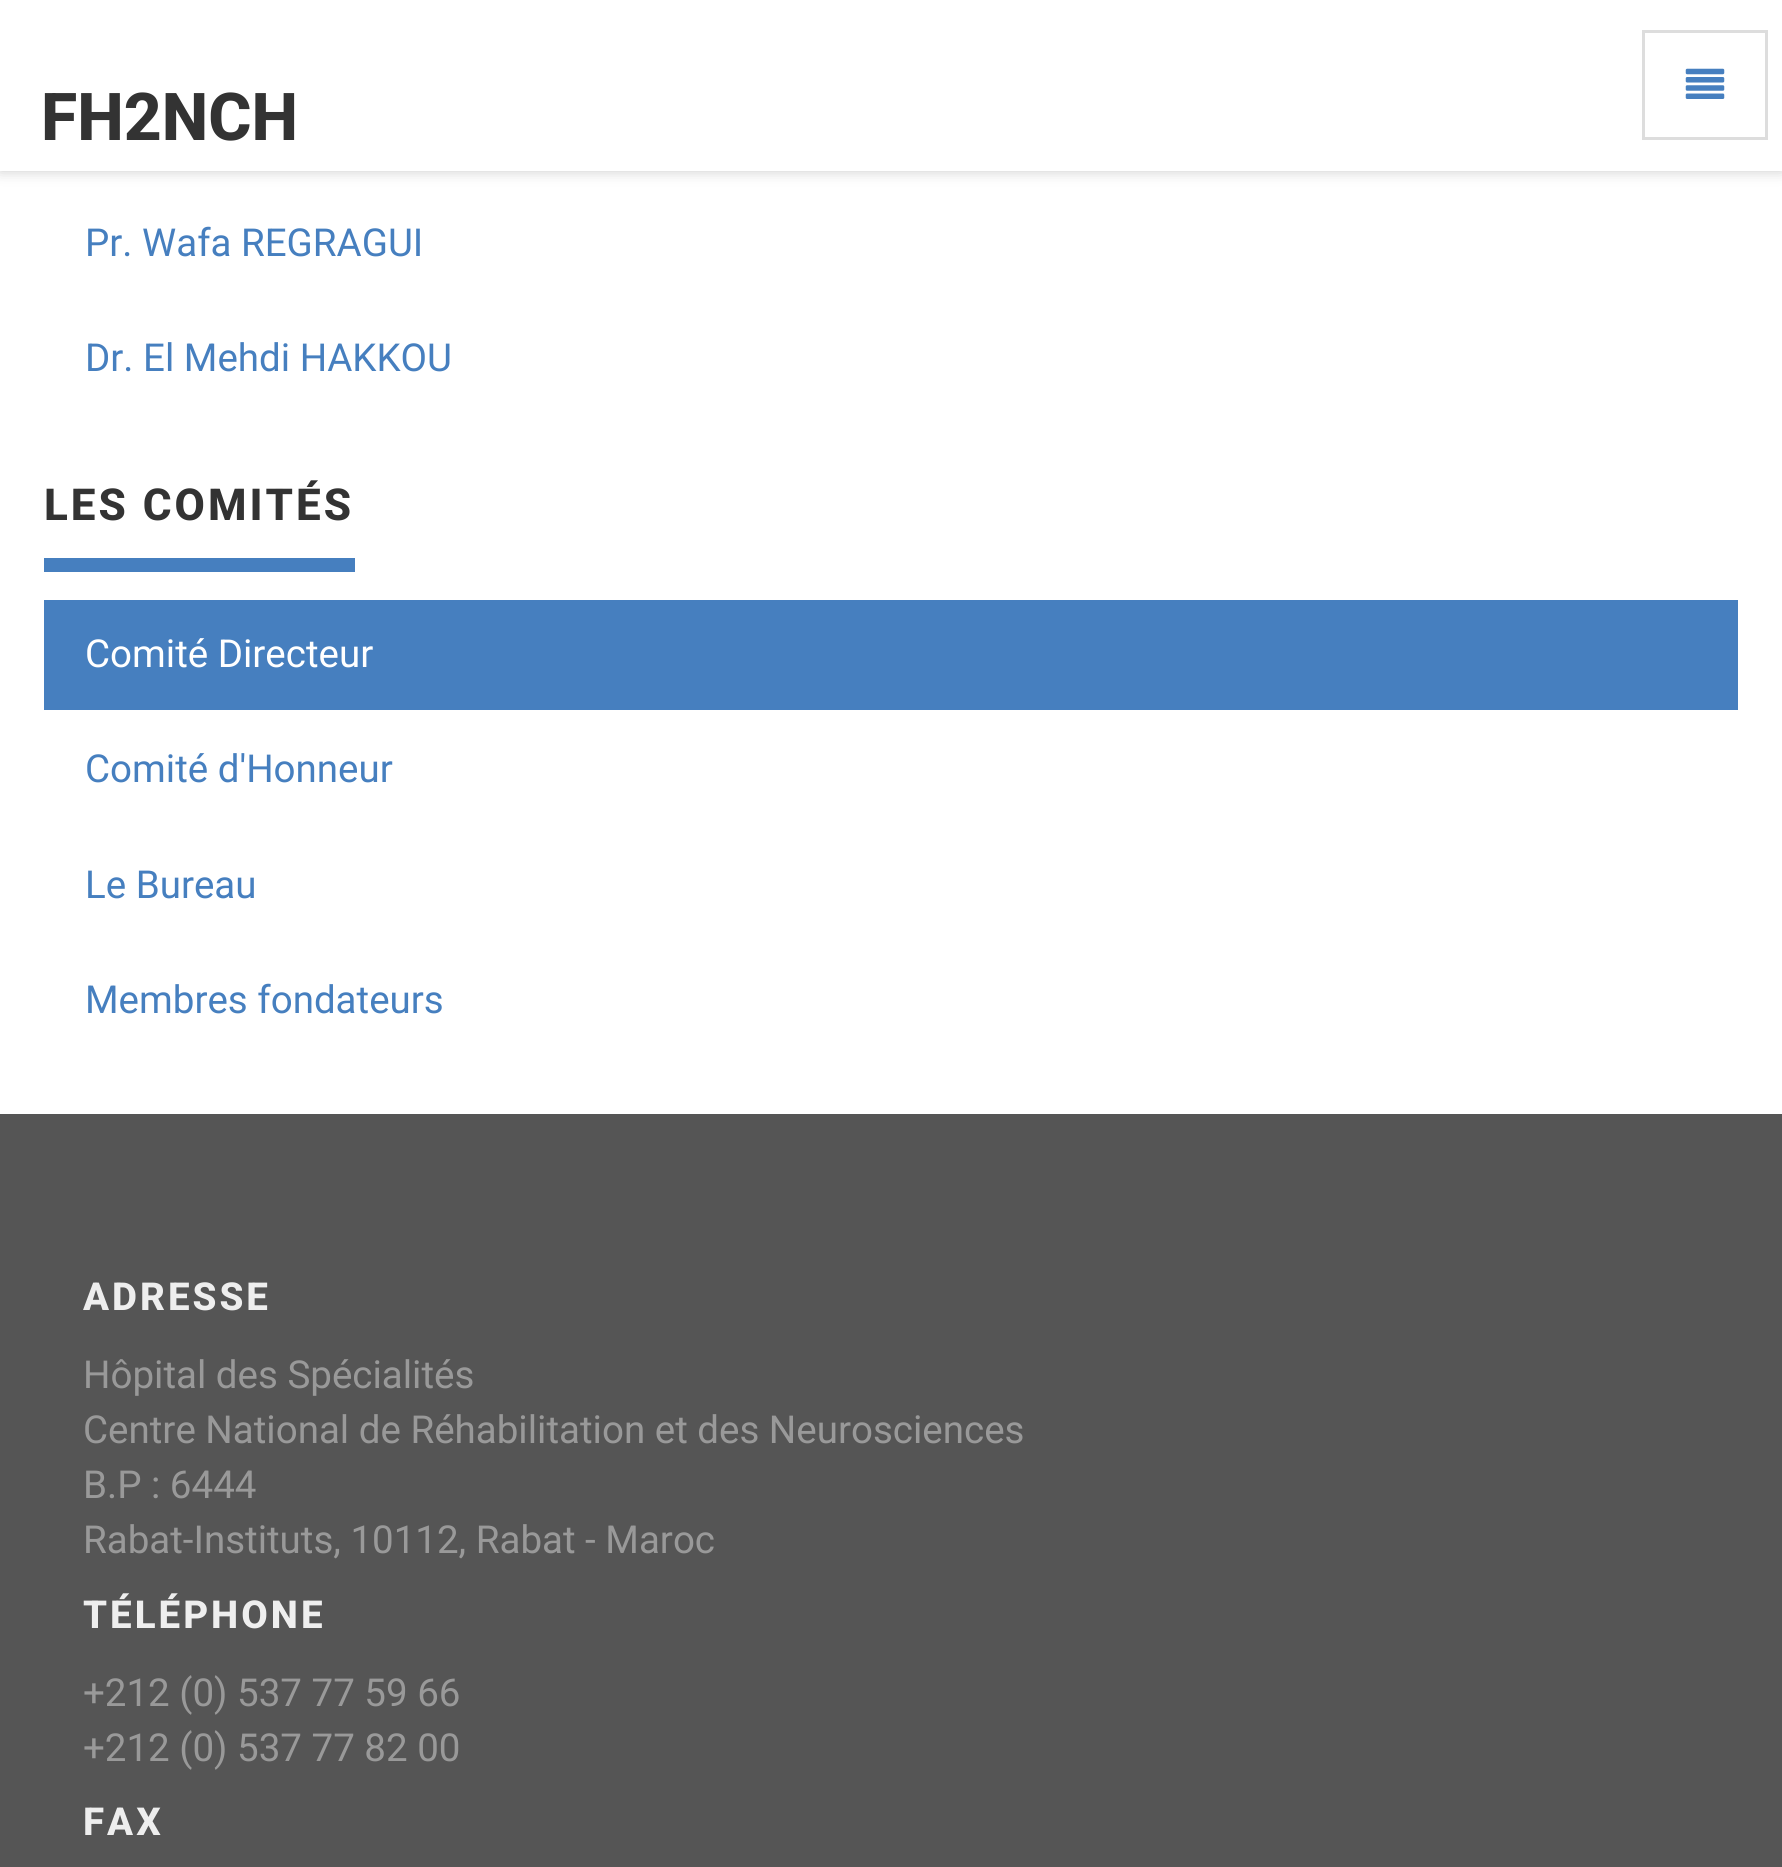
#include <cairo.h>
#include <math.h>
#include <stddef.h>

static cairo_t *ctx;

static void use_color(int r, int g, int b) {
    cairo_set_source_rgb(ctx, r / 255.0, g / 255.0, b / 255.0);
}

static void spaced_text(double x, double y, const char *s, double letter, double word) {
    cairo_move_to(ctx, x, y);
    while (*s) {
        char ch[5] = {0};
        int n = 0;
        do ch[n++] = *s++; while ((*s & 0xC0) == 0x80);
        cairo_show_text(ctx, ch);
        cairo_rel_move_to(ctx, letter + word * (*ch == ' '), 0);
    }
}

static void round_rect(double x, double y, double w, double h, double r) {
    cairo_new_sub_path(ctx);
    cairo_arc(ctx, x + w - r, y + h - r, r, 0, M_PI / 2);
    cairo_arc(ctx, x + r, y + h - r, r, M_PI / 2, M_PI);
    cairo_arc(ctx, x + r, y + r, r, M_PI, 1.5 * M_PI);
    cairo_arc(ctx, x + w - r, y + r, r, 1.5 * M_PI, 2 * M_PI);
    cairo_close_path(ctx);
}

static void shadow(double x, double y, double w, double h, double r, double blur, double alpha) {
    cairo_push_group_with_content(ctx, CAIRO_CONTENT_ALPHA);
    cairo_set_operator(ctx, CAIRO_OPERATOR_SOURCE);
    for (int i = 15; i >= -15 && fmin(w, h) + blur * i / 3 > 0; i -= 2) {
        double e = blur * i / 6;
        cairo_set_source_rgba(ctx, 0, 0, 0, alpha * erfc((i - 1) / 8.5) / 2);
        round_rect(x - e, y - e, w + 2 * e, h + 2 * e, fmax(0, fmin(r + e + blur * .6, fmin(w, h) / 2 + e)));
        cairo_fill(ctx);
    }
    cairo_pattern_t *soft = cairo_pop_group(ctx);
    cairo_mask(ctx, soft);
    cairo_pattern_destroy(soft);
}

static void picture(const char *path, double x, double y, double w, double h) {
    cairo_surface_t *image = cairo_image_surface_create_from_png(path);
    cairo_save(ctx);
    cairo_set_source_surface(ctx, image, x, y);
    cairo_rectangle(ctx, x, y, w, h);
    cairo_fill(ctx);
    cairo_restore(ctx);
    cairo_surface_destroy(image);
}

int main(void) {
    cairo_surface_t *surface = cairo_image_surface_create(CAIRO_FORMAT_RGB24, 1782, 1867);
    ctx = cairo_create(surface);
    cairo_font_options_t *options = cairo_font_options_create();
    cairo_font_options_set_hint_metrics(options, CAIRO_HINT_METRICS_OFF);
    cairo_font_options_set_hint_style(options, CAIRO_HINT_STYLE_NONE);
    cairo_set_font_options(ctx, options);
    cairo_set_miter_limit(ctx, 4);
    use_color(255, 255, 255);
    cairo_paint(ctx);
    use_color(204, 204, 204);
    shadow(0, 0, 1782, 171, 0, 7, 1);
    use_color(255, 255, 255);
    cairo_rectangle(ctx, 0, 0, 1782, 171);
    cairo_fill(ctx);
    cairo_select_font_face(ctx, "Roboto ExtraBold", CAIRO_FONT_SLANT_NORMAL, CAIRO_FONT_WEIGHT_NORMAL);
    cairo_set_font_size(ctx, 66);
    use_color(51, 51, 51);
    cairo_move_to(ctx, 41, 140);
    cairo_show_text(ctx, "FH2NCH");
    cairo_rectangle(ctx, 1643.5, 31.5, 123, 107);
    use_color(221, 221, 221);
    cairo_set_line_width(ctx, 3);
    cairo_stroke(ctx);
    picture("img1.png", 1685, 68, 40, 31);
    cairo_select_font_face(ctx, "Roboto", CAIRO_FONT_SLANT_NORMAL, CAIRO_FONT_WEIGHT_NORMAL);
    cairo_set_font_size(ctx, 38.5);
    use_color(70, 127, 191);
    cairo_move_to(ctx, 85, 256);
    cairo_show_text(ctx, "Pr. Wafa REGRAGUI");
    cairo_move_to(ctx, 85, 371);
    cairo_show_text(ctx, "Dr. El Mehdi HAKKOU");
    cairo_rectangle(ctx, 44, 558, 311, 14);
    cairo_fill(ctx);
    cairo_select_font_face(ctx, "Roboto ExtraBold", CAIRO_FONT_SLANT_NORMAL, CAIRO_FONT_WEIGHT_NORMAL);
    cairo_set_font_size(ctx, 44);
    use_color(51, 51, 51);
    spaced_text(44, 520, "LES COMITÉS", 3, 0);
    use_color(70, 127, 191);
    cairo_rectangle(ctx, 44, 600, 1694, 110);
    cairo_fill(ctx);
    cairo_select_font_face(ctx, "Roboto", CAIRO_FONT_SLANT_NORMAL, CAIRO_FONT_WEIGHT_NORMAL);
    cairo_set_font_size(ctx, 38.5);
    use_color(255, 255, 255);
    cairo_move_to(ctx, 85, 667);
    cairo_show_text(ctx, "Comité Directeur");
    use_color(70, 127, 191);
    cairo_move_to(ctx, 85, 782);
    cairo_show_text(ctx, "Comité d'Honneur");
    cairo_move_to(ctx, 85, 898);
    cairo_show_text(ctx, "Le Bureau");
    cairo_move_to(ctx, 85, 1013);
    cairo_show_text(ctx, "Membres fondateurs");
    use_color(85, 85, 85);
    cairo_rectangle(ctx, 0, 1114, 1782, 753);
    cairo_fill(ctx);
    cairo_select_font_face(ctx, "Roboto ExtraBold", CAIRO_FONT_SLANT_NORMAL, CAIRO_FONT_WEIGHT_NORMAL);
    use_color(238, 238, 238);
    spaced_text(83, 1310, "ADRESSE", 3, 0);
    cairo_select_font_face(ctx, "Roboto", CAIRO_FONT_SLANT_NORMAL, CAIRO_FONT_WEIGHT_NORMAL);
    use_color(153, 153, 153);
    cairo_move_to(ctx, 83, 1388);
    cairo_show_text(ctx, "Hôpital des Spécialités");
    cairo_move_to(ctx, 83, 1443);
    cairo_show_text(ctx, "Centre National de Réhabilitation et des Neurosciences");
    cairo_move_to(ctx, 83, 1498);
    cairo_show_text(ctx, "B.P : 6444");
    cairo_move_to(ctx, 83, 1553);
    cairo_show_text(ctx, "Rabat-Instituts, 10112, Rabat - Maroc");
    cairo_select_font_face(ctx, "Roboto ExtraBold", CAIRO_FONT_SLANT_NORMAL, CAIRO_FONT_WEIGHT_NORMAL);
    use_color(238, 238, 238);
    spaced_text(83, 1628, "TÉLÉPHONE", 3, 0);
    cairo_select_font_face(ctx, "Roboto", CAIRO_FONT_SLANT_NORMAL, CAIRO_FONT_WEIGHT_NORMAL);
    use_color(153, 153, 153);
    cairo_move_to(ctx, 83, 1706);
    cairo_show_text(ctx, "+212 (0) 537 77 59 66");
    cairo_move_to(ctx, 83, 1761);
    cairo_show_text(ctx, "+212 (0) 537 77 82 00");
    cairo_select_font_face(ctx, "Roboto ExtraBold", CAIRO_FONT_SLANT_NORMAL, CAIRO_FONT_WEIGHT_NORMAL);
    use_color(238, 238, 238);
    spaced_text(83, 1835, "FAX", 3, 0);
    cairo_surface_write_to_png(surface, "result.png");
    cairo_font_options_destroy(options);
    cairo_destroy(ctx);
    cairo_surface_destroy(surface);
    return 0;
}
